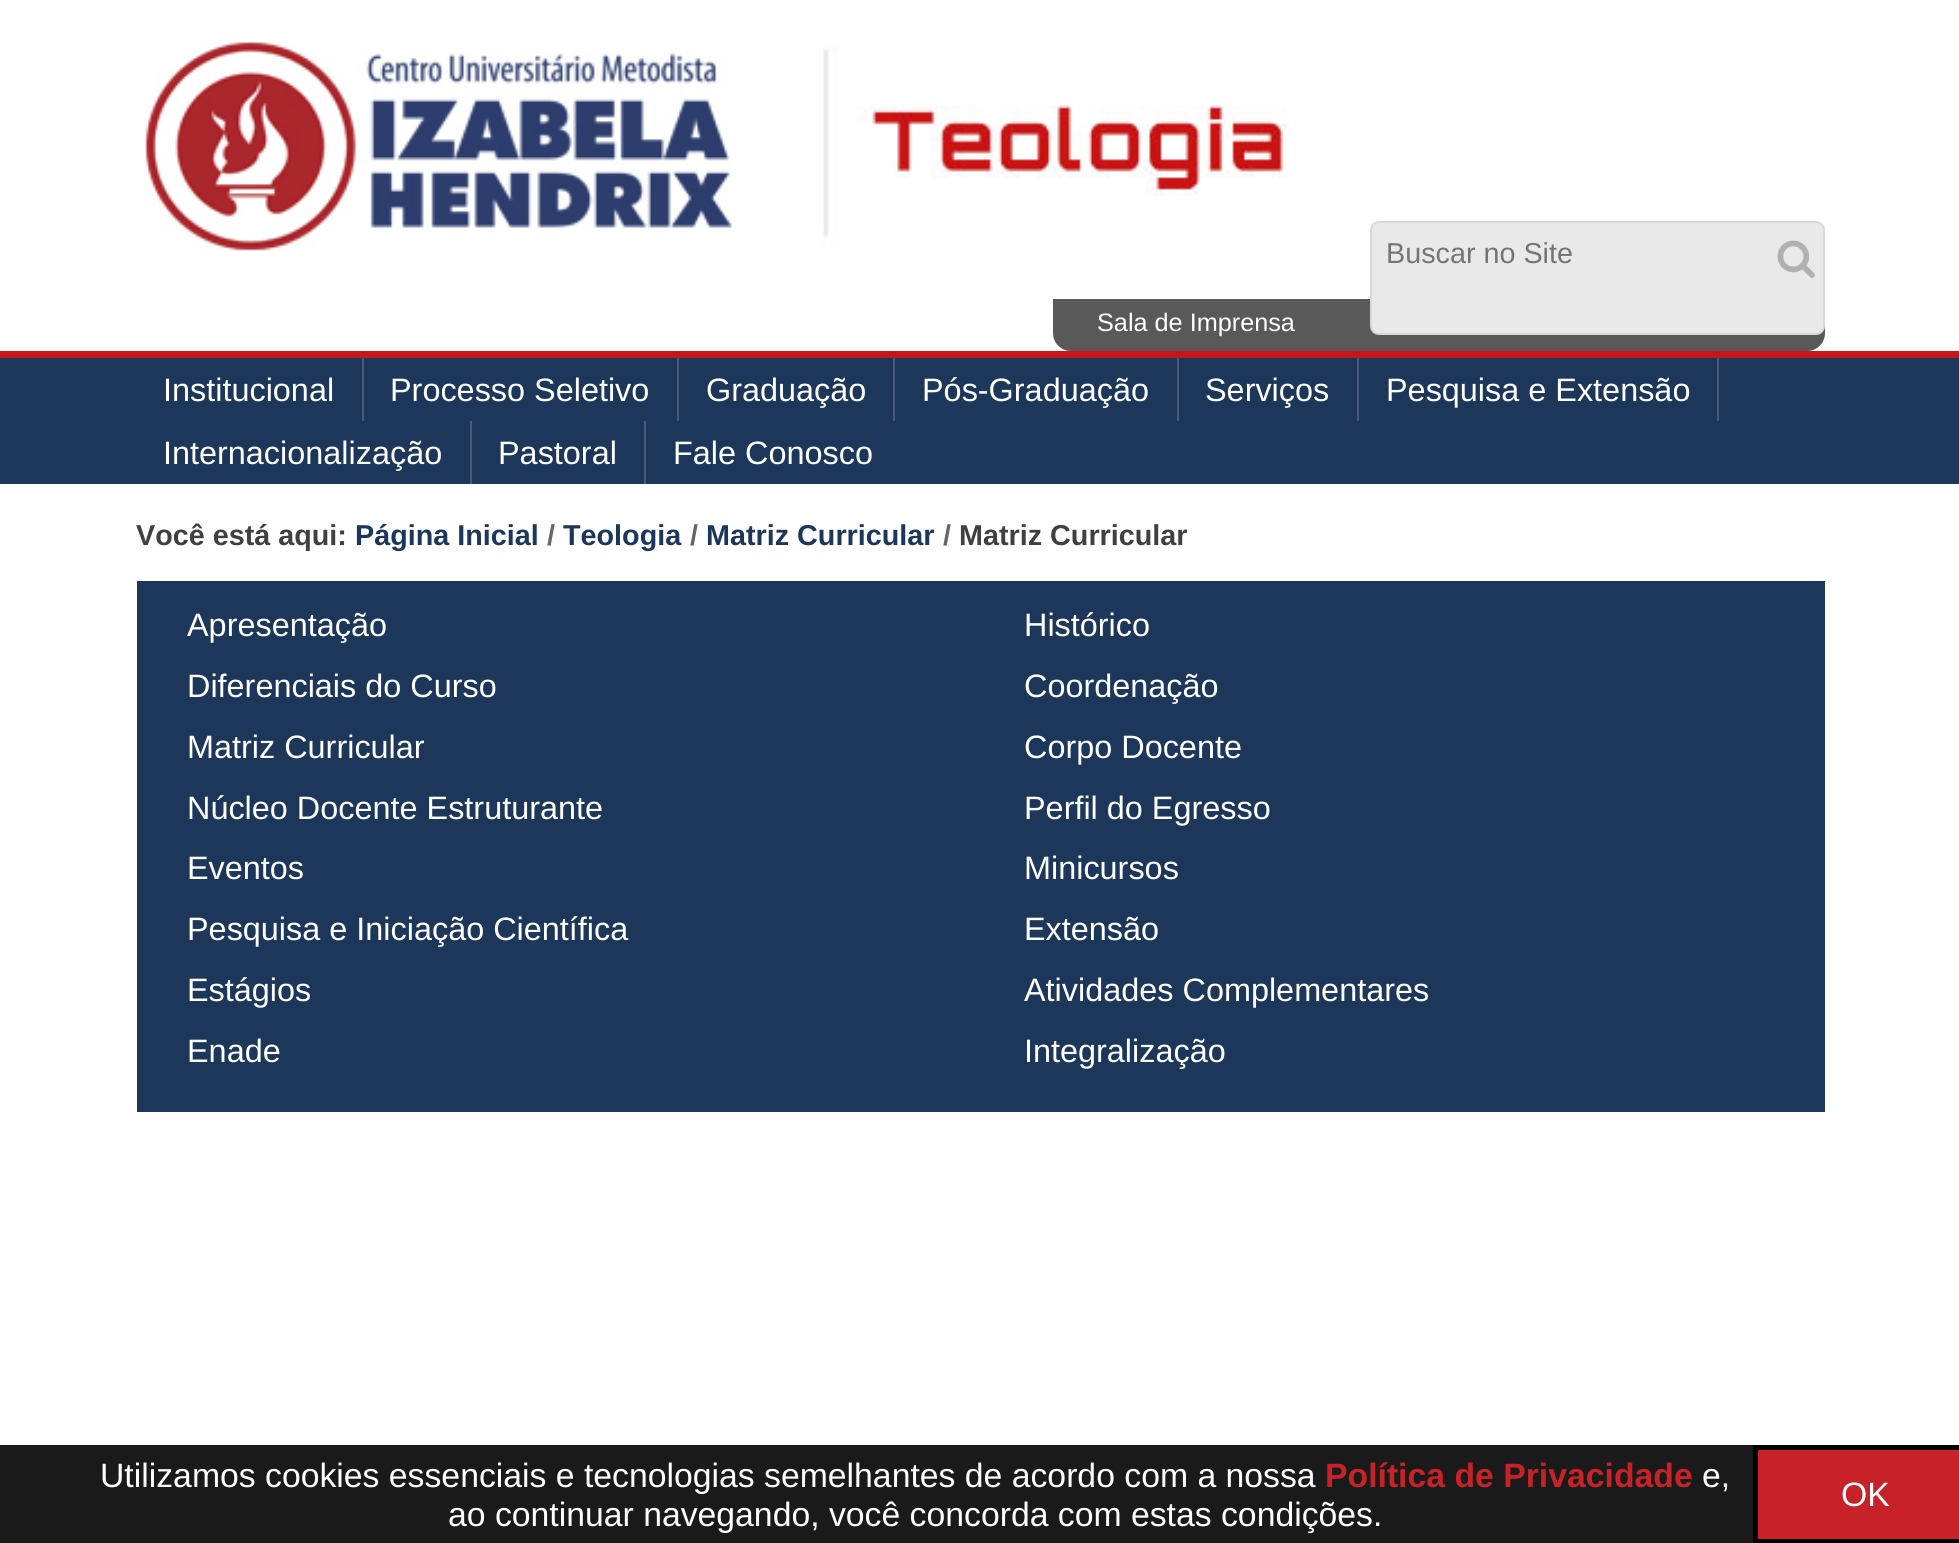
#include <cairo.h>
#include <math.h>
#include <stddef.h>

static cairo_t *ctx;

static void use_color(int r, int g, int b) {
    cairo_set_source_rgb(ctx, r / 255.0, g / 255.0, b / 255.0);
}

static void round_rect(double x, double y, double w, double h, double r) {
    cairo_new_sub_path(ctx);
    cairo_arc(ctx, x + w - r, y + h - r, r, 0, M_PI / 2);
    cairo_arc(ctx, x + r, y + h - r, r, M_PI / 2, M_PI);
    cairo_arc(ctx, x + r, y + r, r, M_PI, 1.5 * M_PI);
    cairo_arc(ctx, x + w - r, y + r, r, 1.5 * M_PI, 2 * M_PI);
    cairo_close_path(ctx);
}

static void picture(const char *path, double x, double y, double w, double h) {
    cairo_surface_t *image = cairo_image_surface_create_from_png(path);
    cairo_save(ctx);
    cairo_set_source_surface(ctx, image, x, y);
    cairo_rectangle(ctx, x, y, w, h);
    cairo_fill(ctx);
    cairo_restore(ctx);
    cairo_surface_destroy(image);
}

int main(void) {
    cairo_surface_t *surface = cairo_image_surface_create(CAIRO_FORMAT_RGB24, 1959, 1543);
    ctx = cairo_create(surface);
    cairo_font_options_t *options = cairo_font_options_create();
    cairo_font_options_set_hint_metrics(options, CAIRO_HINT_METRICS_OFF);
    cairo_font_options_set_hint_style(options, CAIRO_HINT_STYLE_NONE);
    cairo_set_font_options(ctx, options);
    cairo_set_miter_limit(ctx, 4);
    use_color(255, 255, 255);
    cairo_paint(ctx);
    picture("img1.png", 145, 42, 1145, 209);
    use_color(89, 89, 89);
    cairo_new_path(ctx);
    cairo_move_to(ctx, 1053, 299);
    cairo_line_to(ctx, 1825, 299);
    cairo_line_to(ctx, 1825, 333);
    cairo_curve_to(ctx, 1825, 343, 1817, 351, 1807, 351);
    cairo_line_to(ctx, 1071, 351);
    cairo_curve_to(ctx, 1061, 351, 1053, 343, 1053, 333);
    cairo_close_path(ctx);
    cairo_fill(ctx);
    use_color(233, 233, 233);
    round_rect(1371, 222, 453, 112, 8);
    cairo_fill_preserve(ctx);
    use_color(216, 216, 216);
    cairo_stroke(ctx);
    cairo_select_font_face(ctx, "Liberation Sans", CAIRO_FONT_SLANT_NORMAL, CAIRO_FONT_WEIGHT_NORMAL);
    cairo_set_font_size(ctx, 28.75);
    use_color(117, 117, 117);
    cairo_move_to(ctx, 1386, 263);
    cairo_show_text(ctx, "Buscar no Site");
    picture("img2.png", 1777, 240, 38, 38);
    cairo_set_font_size(ctx, 25.25);
    use_color(255, 255, 255);
    cairo_move_to(ctx, 1097, 331);
    cairo_show_text(ctx, "Sala de Imprensa");
    use_color(28, 55, 89);
    cairo_rectangle(ctx, 0, 358, 1959, 126);
    cairo_fill(ctx);
    use_color(196, 22, 28);
    cairo_rectangle(ctx, 0, 351, 1959, 7);
    cairo_fill(ctx);
    use_color(73, 91, 113);
    cairo_rectangle(ctx, 362, 358, 2, 63);
    cairo_fill(ctx);
    cairo_set_font_size(ctx, 32.4);
    use_color(255, 255, 255);
    cairo_move_to(ctx, 163, 401);
    cairo_show_text(ctx, "Institucional");
    use_color(73, 91, 113);
    cairo_rectangle(ctx, 677, 358, 2, 63);
    cairo_fill(ctx);
    use_color(255, 255, 255);
    cairo_move_to(ctx, 390, 401);
    cairo_show_text(ctx, "Processo Seletivo");
    use_color(73, 91, 113);
    cairo_rectangle(ctx, 893, 358, 2, 63);
    cairo_fill(ctx);
    use_color(255, 255, 255);
    cairo_move_to(ctx, 706, 401);
    cairo_show_text(ctx, "Graduação");
    use_color(73, 91, 113);
    cairo_rectangle(ctx, 1177, 358, 2, 63);
    cairo_fill(ctx);
    use_color(255, 255, 255);
    cairo_move_to(ctx, 922, 401);
    cairo_show_text(ctx, "Pós-Graduação");
    use_color(73, 91, 113);
    cairo_rectangle(ctx, 1357, 358, 2, 63);
    cairo_fill(ctx);
    use_color(255, 255, 255);
    cairo_move_to(ctx, 1205, 401);
    cairo_show_text(ctx, "Serviços");
    use_color(73, 91, 113);
    cairo_rectangle(ctx, 1717, 358, 2, 63);
    cairo_fill(ctx);
    use_color(255, 255, 255);
    cairo_move_to(ctx, 1386, 401);
    cairo_show_text(ctx, "Pesquisa e Extensão");
    use_color(73, 91, 113);
    cairo_rectangle(ctx, 470, 421, 2, 63);
    cairo_fill(ctx);
    use_color(255, 255, 255);
    cairo_move_to(ctx, 163, 464);
    cairo_show_text(ctx, "Internacionalização");
    use_color(73, 91, 113);
    cairo_rectangle(ctx, 644, 421, 2, 63);
    cairo_fill(ctx);
    use_color(255, 255, 255);
    cairo_move_to(ctx, 498, 464);
    cairo_show_text(ctx, "Pastoral");
    cairo_move_to(ctx, 673, 464);
    cairo_show_text(ctx, "Fale Conosco");
    cairo_select_font_face(ctx, "Liberation Sans", CAIRO_FONT_SLANT_NORMAL, CAIRO_FONT_WEIGHT_BOLD);
    cairo_set_font_size(ctx, 28.75);
    use_color(64, 64, 64);
    cairo_move_to(ctx, 136, 545);
    cairo_show_text(ctx, "Você está aqui:");
    use_color(28, 55, 89);
    cairo_move_to(ctx, 355, 545);
    cairo_show_text(ctx, "Página Inicial");
    use_color(102, 102, 102);
    cairo_move_to(ctx, 547, 545);
    cairo_show_text(ctx, "/");
    use_color(28, 55, 89);
    cairo_move_to(ctx, 563, 545);
    cairo_show_text(ctx, "Teologia");
    use_color(102, 102, 102);
    cairo_move_to(ctx, 690, 545);
    cairo_show_text(ctx, "/");
    use_color(28, 55, 89);
    cairo_move_to(ctx, 706, 545);
    cairo_show_text(ctx, "Matriz Curricular");
    use_color(102, 102, 102);
    cairo_move_to(ctx, 943, 545);
    cairo_show_text(ctx, "/");
    use_color(64, 64, 64);
    cairo_move_to(ctx, 959, 545);
    cairo_show_text(ctx, "Matriz Curricular");
    use_color(28, 55, 89);
    cairo_rectangle(ctx, 137, 581, 1688, 531);
    cairo_fill(ctx);
    cairo_select_font_face(ctx, "Liberation Sans", CAIRO_FONT_SLANT_NORMAL, CAIRO_FONT_WEIGHT_NORMAL);
    cairo_set_font_size(ctx, 32.4);
    use_color(255, 255, 255);
    cairo_move_to(ctx, 187, 636);
    cairo_show_text(ctx, "Apresentação");
    cairo_move_to(ctx, 1024, 636);
    cairo_show_text(ctx, "Histórico");
    cairo_move_to(ctx, 187, 697);
    cairo_show_text(ctx, "Diferenciais do Curso");
    cairo_move_to(ctx, 1024, 697);
    cairo_show_text(ctx, "Coordenação");
    cairo_move_to(ctx, 187, 758);
    cairo_show_text(ctx, "Matriz Curricular");
    cairo_move_to(ctx, 1024, 758);
    cairo_show_text(ctx, "Corpo Docente");
    cairo_move_to(ctx, 187, 819);
    cairo_show_text(ctx, "Núcleo Docente Estruturante");
    cairo_move_to(ctx, 1024, 819);
    cairo_show_text(ctx, "Perfil do Egresso");
    cairo_move_to(ctx, 187, 879);
    cairo_show_text(ctx, "Eventos");
    cairo_move_to(ctx, 1024, 879);
    cairo_show_text(ctx, "Minicursos");
    cairo_move_to(ctx, 187, 940);
    cairo_show_text(ctx, "Pesquisa e Iniciação Científica");
    cairo_move_to(ctx, 1024, 940);
    cairo_show_text(ctx, "Extensão");
    cairo_move_to(ctx, 187, 1001);
    cairo_show_text(ctx, "Estágios");
    cairo_move_to(ctx, 1024, 1001);
    cairo_show_text(ctx, "Atividades Complementares");
    cairo_move_to(ctx, 187, 1062);
    cairo_show_text(ctx, "Enade");
    cairo_move_to(ctx, 1024, 1062);
    cairo_show_text(ctx, "Integralização");
    use_color(26, 26, 26);
    cairo_rectangle(ctx, 0, 1445, 1753, 98);
    cairo_fill(ctx);
    cairo_set_font_size(ctx, 33.75);
    use_color(255, 255, 255);
    cairo_move_to(ctx, 100, 1487);
    cairo_show_text(ctx, "Utilizamos cookies essenciais e tecnologias semelhantes de acordo com a nossa");
    cairo_select_font_face(ctx, "Liberation Sans", CAIRO_FONT_SLANT_NORMAL, CAIRO_FONT_WEIGHT_BOLD);
    use_color(198, 34, 40);
    cairo_move_to(ctx, 1325, 1487);
    cairo_show_text(ctx, "Política de Privacidade");
    cairo_select_font_face(ctx, "Liberation Sans", CAIRO_FONT_SLANT_NORMAL, CAIRO_FONT_WEIGHT_NORMAL);
    use_color(255, 255, 255);
    cairo_move_to(ctx, 1702, 1487);
    cairo_show_text(ctx, "e,");
    cairo_move_to(ctx, 448, 1526);
    cairo_show_text(ctx, "ao continuar navegando, você concorda com estas condições.");
    use_color(198, 34, 40);
    cairo_rectangle(ctx, 1755.5, 1447.5, 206, 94);
    cairo_fill_preserve(ctx);
    use_color(0, 0, 0);
    cairo_set_line_width(ctx, 5);
    cairo_stroke(ctx);
    use_color(255, 255, 255);
    cairo_move_to(ctx, 1841, 1506);
    cairo_show_text(ctx, "OK");
    cairo_surface_write_to_png(surface, "result.png");
    cairo_font_options_destroy(options);
    cairo_destroy(ctx);
    cairo_surface_destroy(surface);
    return 0;
}
